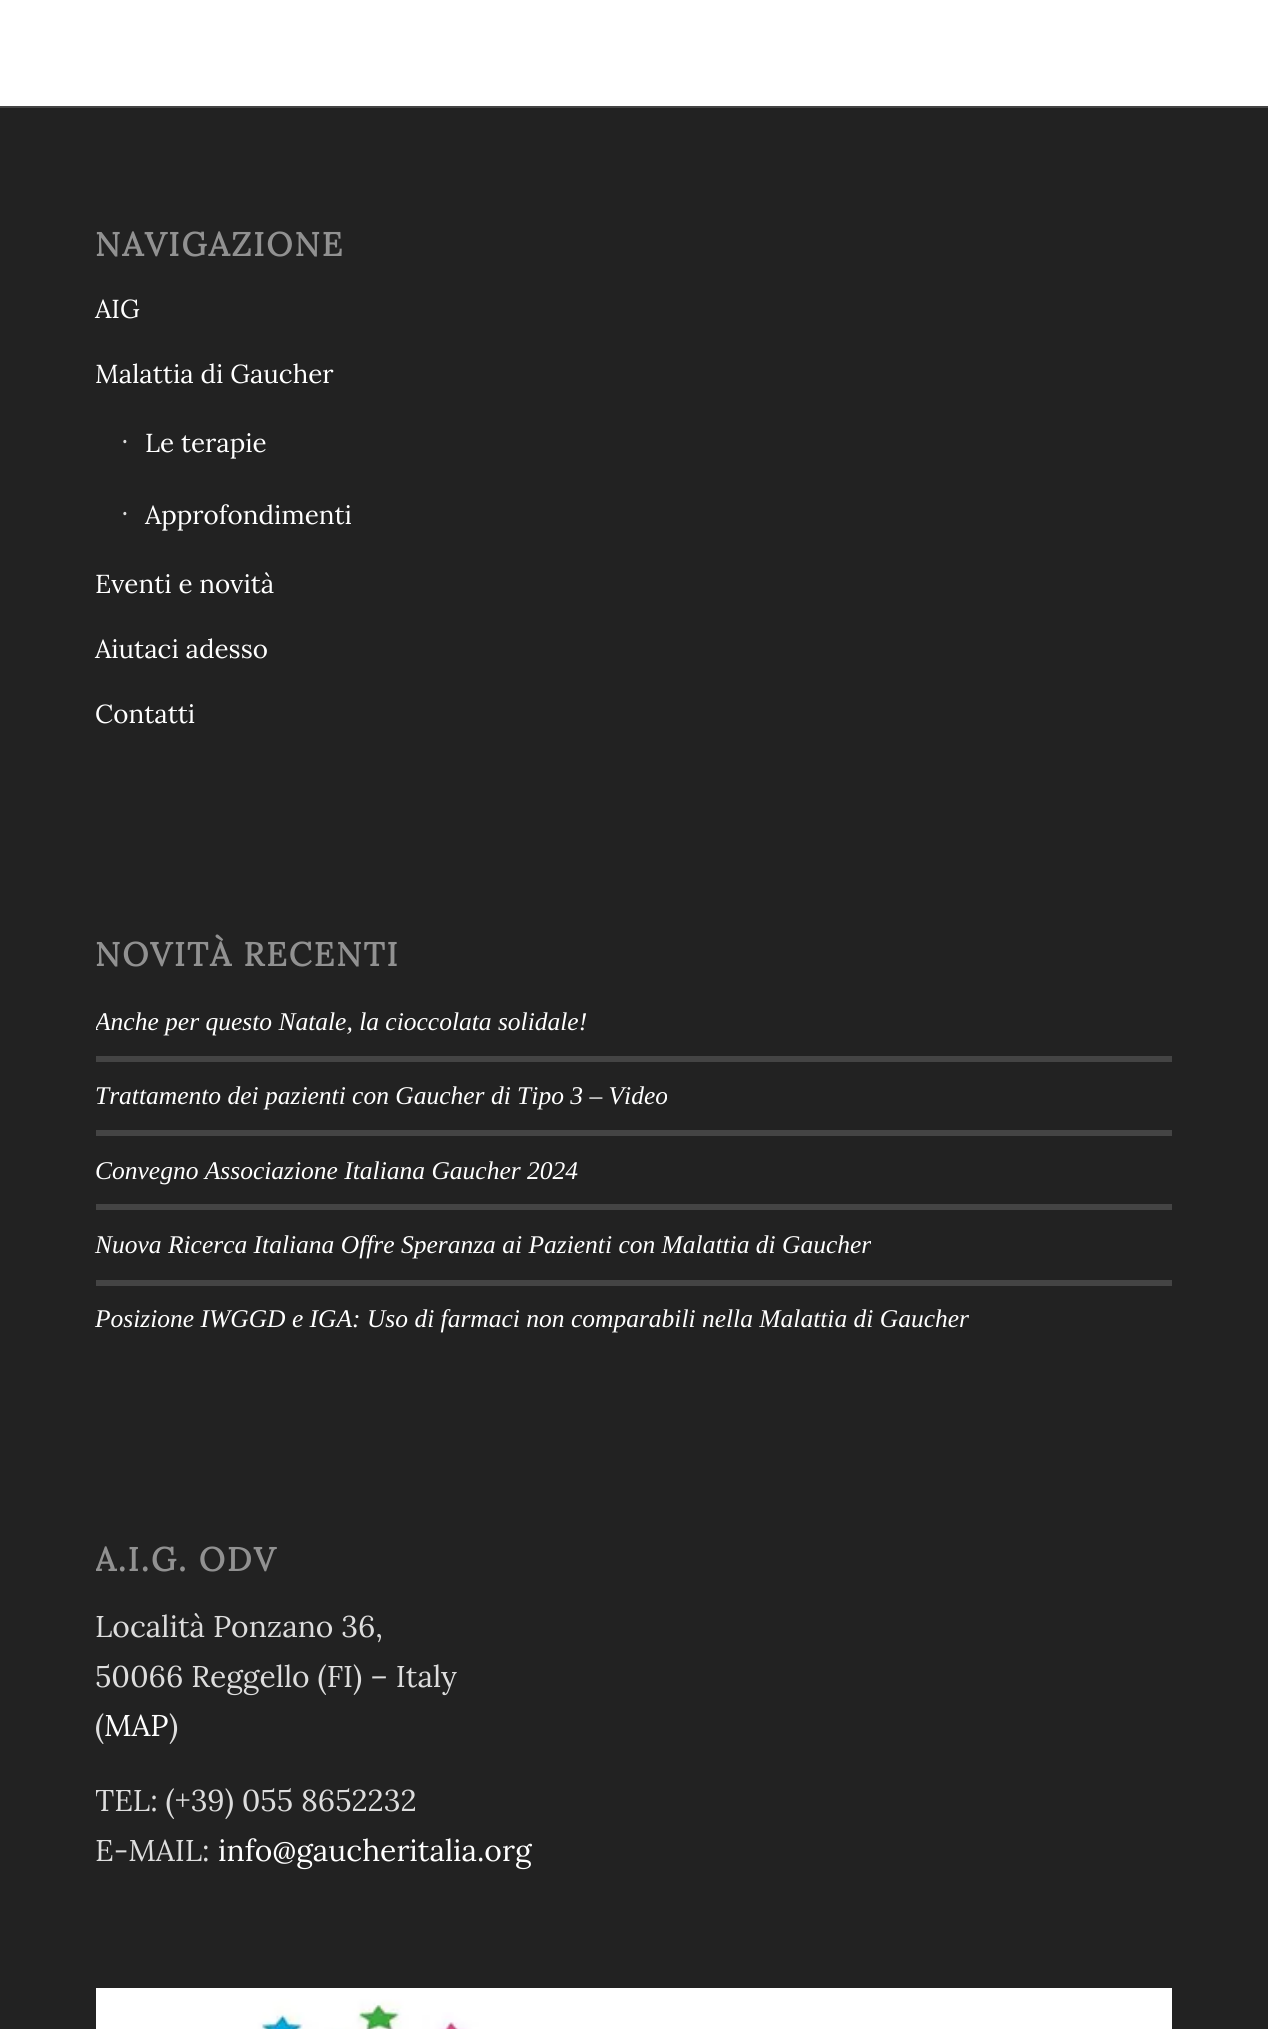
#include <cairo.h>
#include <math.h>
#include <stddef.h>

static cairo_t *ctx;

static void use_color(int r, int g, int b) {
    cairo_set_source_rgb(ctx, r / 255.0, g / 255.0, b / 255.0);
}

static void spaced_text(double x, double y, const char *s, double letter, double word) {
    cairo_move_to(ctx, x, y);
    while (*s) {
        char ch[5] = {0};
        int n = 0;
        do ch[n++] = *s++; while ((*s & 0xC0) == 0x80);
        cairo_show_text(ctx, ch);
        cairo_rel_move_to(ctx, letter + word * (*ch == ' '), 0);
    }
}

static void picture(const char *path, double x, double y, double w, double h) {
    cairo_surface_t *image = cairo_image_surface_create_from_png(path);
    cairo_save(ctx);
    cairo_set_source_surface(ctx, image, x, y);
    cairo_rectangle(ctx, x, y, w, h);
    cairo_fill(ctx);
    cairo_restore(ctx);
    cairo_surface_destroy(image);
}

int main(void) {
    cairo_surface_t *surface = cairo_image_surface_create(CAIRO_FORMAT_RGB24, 1268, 2029);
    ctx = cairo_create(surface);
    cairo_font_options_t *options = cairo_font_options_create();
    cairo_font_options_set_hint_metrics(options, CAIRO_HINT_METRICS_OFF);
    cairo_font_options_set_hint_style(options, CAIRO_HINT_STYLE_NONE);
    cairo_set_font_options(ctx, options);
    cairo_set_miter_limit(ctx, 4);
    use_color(255, 255, 255);
    cairo_paint(ctx);
    use_color(34, 34, 34);
    cairo_rectangle(ctx, 0, 108, 1268, 1921);
    cairo_fill(ctx);
    use_color(68, 68, 68);
    cairo_rectangle(ctx, 0, 106, 1268, 2);
    cairo_fill(ctx);
    cairo_select_font_face(ctx, "Lora", CAIRO_FONT_SLANT_NORMAL, CAIRO_FONT_WEIGHT_BOLD);
    cairo_set_font_size(ctx, 33);
    use_color(145, 145, 145);
    spaced_text(95, 256, "NAVIGAZIONE", 2, 0);
    cairo_select_font_face(ctx, "Lora", CAIRO_FONT_SLANT_NORMAL, CAIRO_FONT_WEIGHT_NORMAL);
    cairo_set_font_size(ctx, 26);
    use_color(255, 255, 255);
    cairo_move_to(ctx, 95, 318);
    cairo_show_text(ctx, "AIG");
    cairo_move_to(ctx, 95, 383);
    cairo_show_text(ctx, "Malattia di Gaucher");
    use_color(221, 221, 221);
    cairo_move_to(ctx, 121, 450);
    cairo_show_text(ctx, "∙");
    use_color(255, 255, 255);
    cairo_move_to(ctx, 145, 452);
    cairo_show_text(ctx, "Le terapie");
    use_color(221, 221, 221);
    cairo_move_to(ctx, 121, 522);
    cairo_show_text(ctx, "∙");
    use_color(255, 255, 255);
    cairo_move_to(ctx, 145, 524);
    cairo_show_text(ctx, "Approfondimenti");
    cairo_move_to(ctx, 95, 593);
    cairo_show_text(ctx, "Eventi e novità");
    cairo_move_to(ctx, 95, 658);
    cairo_show_text(ctx, "Aiutaci adesso");
    cairo_move_to(ctx, 95, 723);
    cairo_show_text(ctx, "Contatti");
    cairo_select_font_face(ctx, "Lora", CAIRO_FONT_SLANT_NORMAL, CAIRO_FONT_WEIGHT_BOLD);
    cairo_set_font_size(ctx, 33);
    use_color(145, 145, 145);
    spaced_text(95, 966, "NOVITÀ RECENTI", 2, 0);
    cairo_save(ctx);
    cairo_rectangle(ctx, 96, 908, 1076, 446);
    cairo_clip(ctx);
    cairo_select_font_face(ctx, "Liberation Serif", CAIRO_FONT_SLANT_ITALIC, CAIRO_FONT_WEIGHT_NORMAL);
    cairo_set_font_size(ctx, 25.5);
    use_color(255, 255, 255);
    cairo_move_to(ctx, 95, 1030);
    cairo_show_text(ctx, "Anche per questo Natale, la cioccolata solidale!");
    cairo_restore(ctx);
    use_color(68, 68, 68);
    cairo_rectangle(ctx, 96, 1056, 1076, 6);
    cairo_fill(ctx);
    cairo_select_font_face(ctx, "Liberation Serif", CAIRO_FONT_SLANT_ITALIC, CAIRO_FONT_WEIGHT_NORMAL);
    cairo_set_font_size(ctx, 25.5);
    use_color(255, 255, 255);
    cairo_move_to(ctx, 95, 1104);
    cairo_show_text(ctx, "Trattamento dei pazienti con Gaucher di Tipo 3 – Video");
    use_color(68, 68, 68);
    cairo_rectangle(ctx, 96, 1130, 1076, 6);
    cairo_fill(ctx);
    use_color(255, 255, 255);
    cairo_move_to(ctx, 95, 1179);
    cairo_show_text(ctx, "Convegno Associazione Italiana Gaucher 2024");
    use_color(68, 68, 68);
    cairo_rectangle(ctx, 96, 1204, 1076, 6);
    cairo_fill(ctx);
    use_color(255, 255, 255);
    cairo_move_to(ctx, 95, 1253);
    cairo_show_text(ctx, "Nuova Ricerca Italiana Offre Speranza ai Pazienti con Malattia di Gaucher");
    use_color(68, 68, 68);
    cairo_rectangle(ctx, 96, 1280, 1076, 6);
    cairo_fill(ctx);
    use_color(255, 255, 255);
    cairo_move_to(ctx, 95, 1327);
    cairo_show_text(ctx, "Posizione IWGGD e IGA: Uso di farmaci non comparabili nella Malattia di Gaucher");
    cairo_save(ctx);
    cairo_rectangle(ctx, 96, 1514, 1076, 388);
    cairo_clip(ctx);
    cairo_select_font_face(ctx, "Lora", CAIRO_FONT_SLANT_NORMAL, CAIRO_FONT_WEIGHT_BOLD);
    cairo_set_font_size(ctx, 33);
    use_color(145, 145, 145);
    spaced_text(95, 1571, "A.I.G. ODV", 2, 0);
    cairo_restore(ctx);
    cairo_select_font_face(ctx, "Lora", CAIRO_FONT_SLANT_NORMAL, CAIRO_FONT_WEIGHT_NORMAL);
    cairo_set_font_size(ctx, 30);
    use_color(221, 221, 221);
    cairo_move_to(ctx, 95, 1637);
    cairo_show_text(ctx, "Località Ponzano 36,");
    cairo_move_to(ctx, 95, 1687);
    cairo_show_text(ctx, "50066 Reggello (FI) – Italy");
    cairo_move_to(ctx, 95, 1736);
    cairo_show_text(ctx, "(");
    use_color(255, 255, 255);
    cairo_move_to(ctx, 104, 1736);
    cairo_show_text(ctx, "MAP");
    use_color(221, 221, 221);
    cairo_move_to(ctx, 169, 1736);
    cairo_show_text(ctx, ")");
    cairo_save(ctx);
    cairo_rectangle(ctx, 96, 1514, 1076, 388);
    cairo_clip(ctx);
    cairo_move_to(ctx, 95, 1811);
    cairo_show_text(ctx, "TEL: (+39) 055 8652232");
    cairo_restore(ctx);
    cairo_move_to(ctx, 95, 1861);
    cairo_show_text(ctx, "E-MAIL:");
    use_color(255, 255, 255);
    cairo_move_to(ctx, 218, 1861);
    cairo_show_text(ctx, "info@gaucheritalia.org");
    picture("img1.png", 96, 1988, 1076, 41);
    cairo_surface_write_to_png(surface, "result.png");
    cairo_font_options_destroy(options);
    cairo_destroy(ctx);
    cairo_surface_destroy(surface);
    return 0;
}
